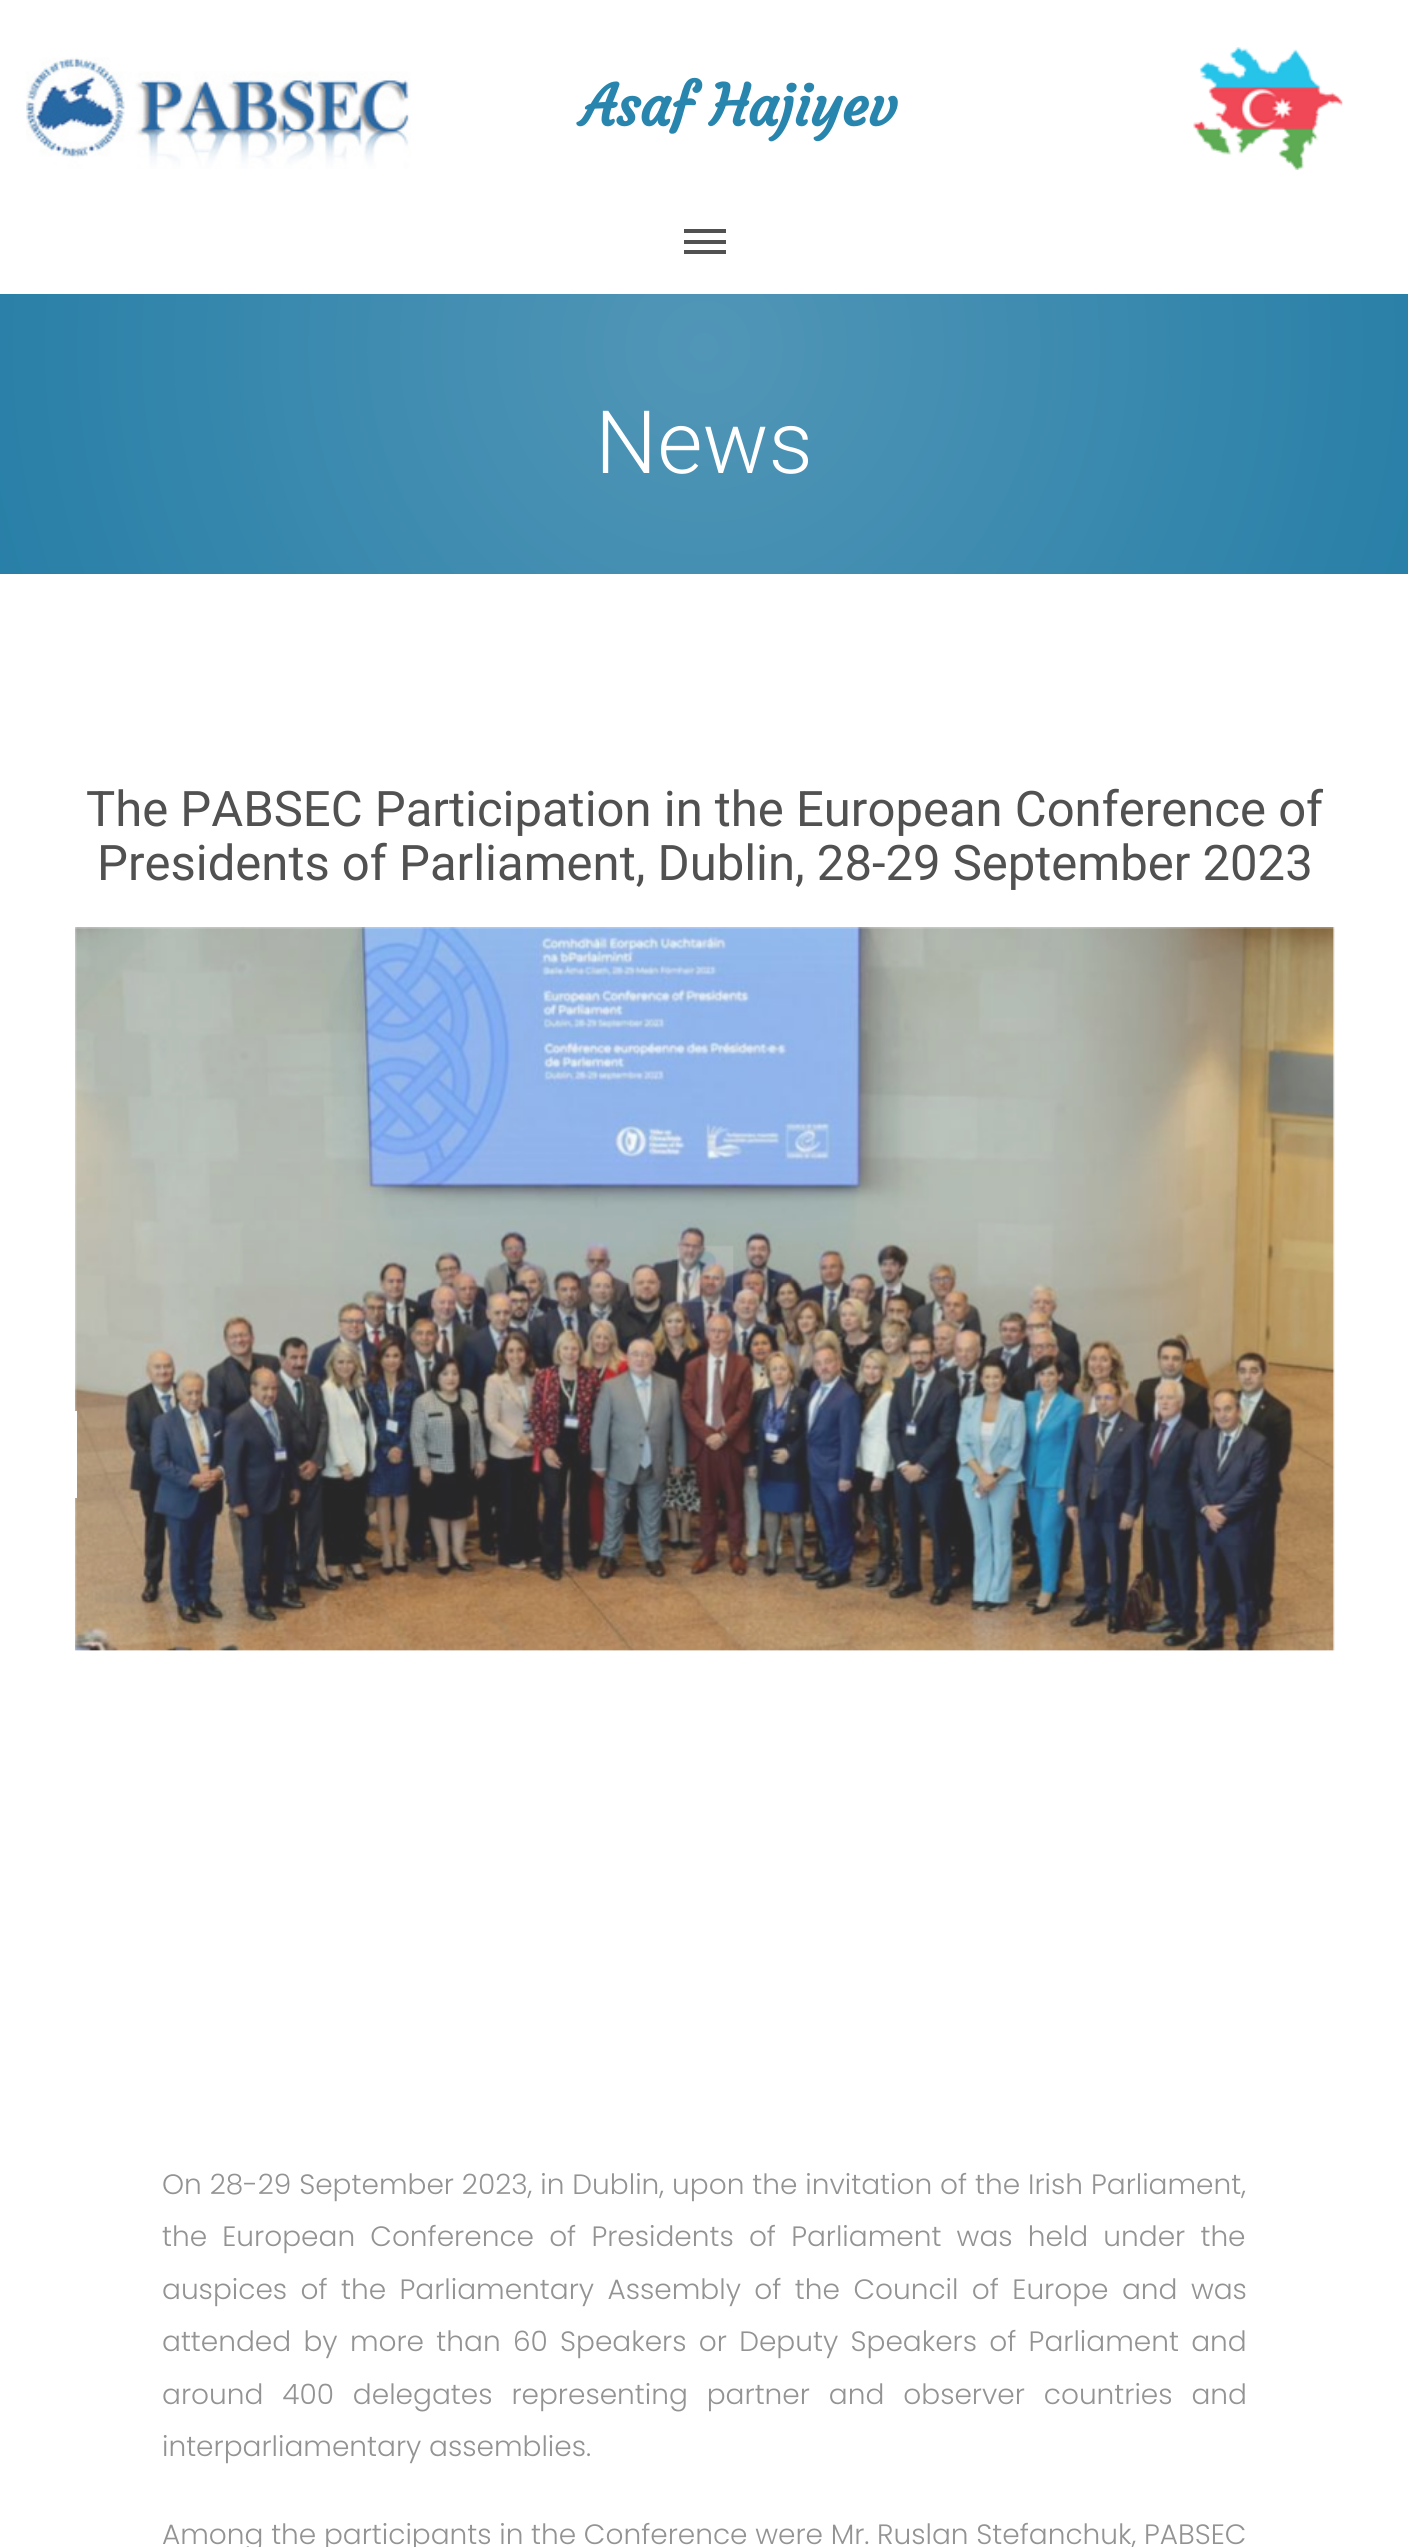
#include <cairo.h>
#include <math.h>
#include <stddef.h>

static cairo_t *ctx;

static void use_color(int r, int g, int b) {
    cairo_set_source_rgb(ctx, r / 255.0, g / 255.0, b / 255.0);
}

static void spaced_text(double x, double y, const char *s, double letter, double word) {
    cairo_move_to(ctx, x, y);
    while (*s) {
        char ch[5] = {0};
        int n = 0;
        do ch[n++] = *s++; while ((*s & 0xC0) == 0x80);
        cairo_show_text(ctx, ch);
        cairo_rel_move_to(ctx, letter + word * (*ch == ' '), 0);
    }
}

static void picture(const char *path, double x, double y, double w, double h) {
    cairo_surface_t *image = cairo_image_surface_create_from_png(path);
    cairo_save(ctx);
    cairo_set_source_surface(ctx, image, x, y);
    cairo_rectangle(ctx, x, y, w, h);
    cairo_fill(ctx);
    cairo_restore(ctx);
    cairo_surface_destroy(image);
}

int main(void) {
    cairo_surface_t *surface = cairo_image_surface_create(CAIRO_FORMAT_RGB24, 1408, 2547);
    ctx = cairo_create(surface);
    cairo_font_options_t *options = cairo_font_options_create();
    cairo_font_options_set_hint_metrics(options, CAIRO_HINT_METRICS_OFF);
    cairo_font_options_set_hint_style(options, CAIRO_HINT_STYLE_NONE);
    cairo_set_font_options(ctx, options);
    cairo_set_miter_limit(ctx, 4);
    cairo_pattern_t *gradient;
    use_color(255, 255, 255);
    cairo_paint(ctx);
    picture("img1.png", 26, 57, 385, 112);
    cairo_select_font_face(ctx, "Courgette", CAIRO_FONT_SLANT_NORMAL, CAIRO_FONT_WEIGHT_BOLD);
    cairo_set_font_size(ctx, 56.5);
    use_color(40, 133, 173);
    cairo_move_to(ctx, 581, 126);
    cairo_show_text(ctx, "Asaf Hajiyev");
    picture("img2.png", 1193, 47, 150, 123);
    use_color(81, 81, 81);
    cairo_rectangle(ctx, 684, 240, 42, 4);
    cairo_fill(ctx);
    cairo_rectangle(ctx, 684, 229, 42, 4);
    cairo_fill(ctx);
    cairo_rectangle(ctx, 684, 250, 42, 4);
    cairo_fill(ctx);
    gradient = cairo_pattern_create_radial(704, 347, 0, 704, 347, 740);
    cairo_pattern_add_color_stop_rgba(gradient, 0, 0.318, 0.588, 0.718, 1);
    cairo_pattern_add_color_stop_rgba(gradient, 1, 0.157, 0.498, 0.655, 1);
    cairo_set_source(ctx, gradient);
    cairo_pattern_destroy(gradient);
    cairo_rectangle(ctx, 0, 294, 1408, 280);
    cairo_fill(ctx);
    cairo_select_font_face(ctx, "Roboto Light", CAIRO_FONT_SLANT_NORMAL, CAIRO_FONT_WEIGHT_NORMAL);
    cairo_set_font_size(ctx, 87.5);
    use_color(255, 255, 255);
    cairo_move_to(ctx, 595, 473);
    cairo_show_text(ctx, "News");
    cairo_select_font_face(ctx, "Roboto", CAIRO_FONT_SLANT_NORMAL, CAIRO_FONT_WEIGHT_NORMAL);
    cairo_set_font_size(ctx, 49);
    use_color(81, 81, 81);
    cairo_move_to(ctx, 86, 826);
    cairo_show_text(ctx, "The PABSEC Participation in the European Conference of");
    cairo_move_to(ctx, 97, 880);
    cairo_show_text(ctx, "Presidents of Parliament, Dublin, 28-29 September 2023");
    picture("img3.png", 75, 927, 1260, 724);
    cairo_save(ctx);
    cairo_rectangle(ctx, 75, 928, 1260, 1050);
    cairo_clip(ctx);
    cairo_rectangle(ctx, -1, 1412, 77, 85);
    use_color(255, 255, 255);
    cairo_stroke(ctx);
    cairo_restore(ctx);
    cairo_select_font_face(ctx, "Poppins Light", CAIRO_FONT_SLANT_NORMAL, CAIRO_FONT_WEIGHT_NORMAL);
    cairo_set_font_size(ctx, 28);
    use_color(147, 147, 147);
    spaced_text(162, 2194, "On 28-29 September 2023, in Dublin, upon the invitation of the Irish Parliament,", 0, 0.25);
    spaced_text(162, 2246, "the European Conference of Presidents of Parliament was held under the", 0, 7.5);
    spaced_text(162, 2299, "auspices of the Parliamentary Assembly of the Council of Europe and was", 0, 5.75);
    spaced_text(162, 2351, "attended by more than 60 Speakers or Deputy Speakers of Parliament and", 0, 4.6);
    spaced_text(162, 2404, "around 400 delegates representing partner and observer countries and", 0, 11.25);
    cairo_move_to(ctx, 162, 2456);
    cairo_show_text(ctx, "interparliamentary assemblies.");
    cairo_move_to(ctx, 162, 2544);
    cairo_show_text(ctx, "Among the participants in the Conference were Mr. Ruslan Stefanchuk, PABSEC");
    picture("img4.png", 677, 1245, 57, 58);
    cairo_surface_write_to_png(surface, "result.png");
    cairo_font_options_destroy(options);
    cairo_destroy(ctx);
    cairo_surface_destroy(surface);
    return 0;
}
